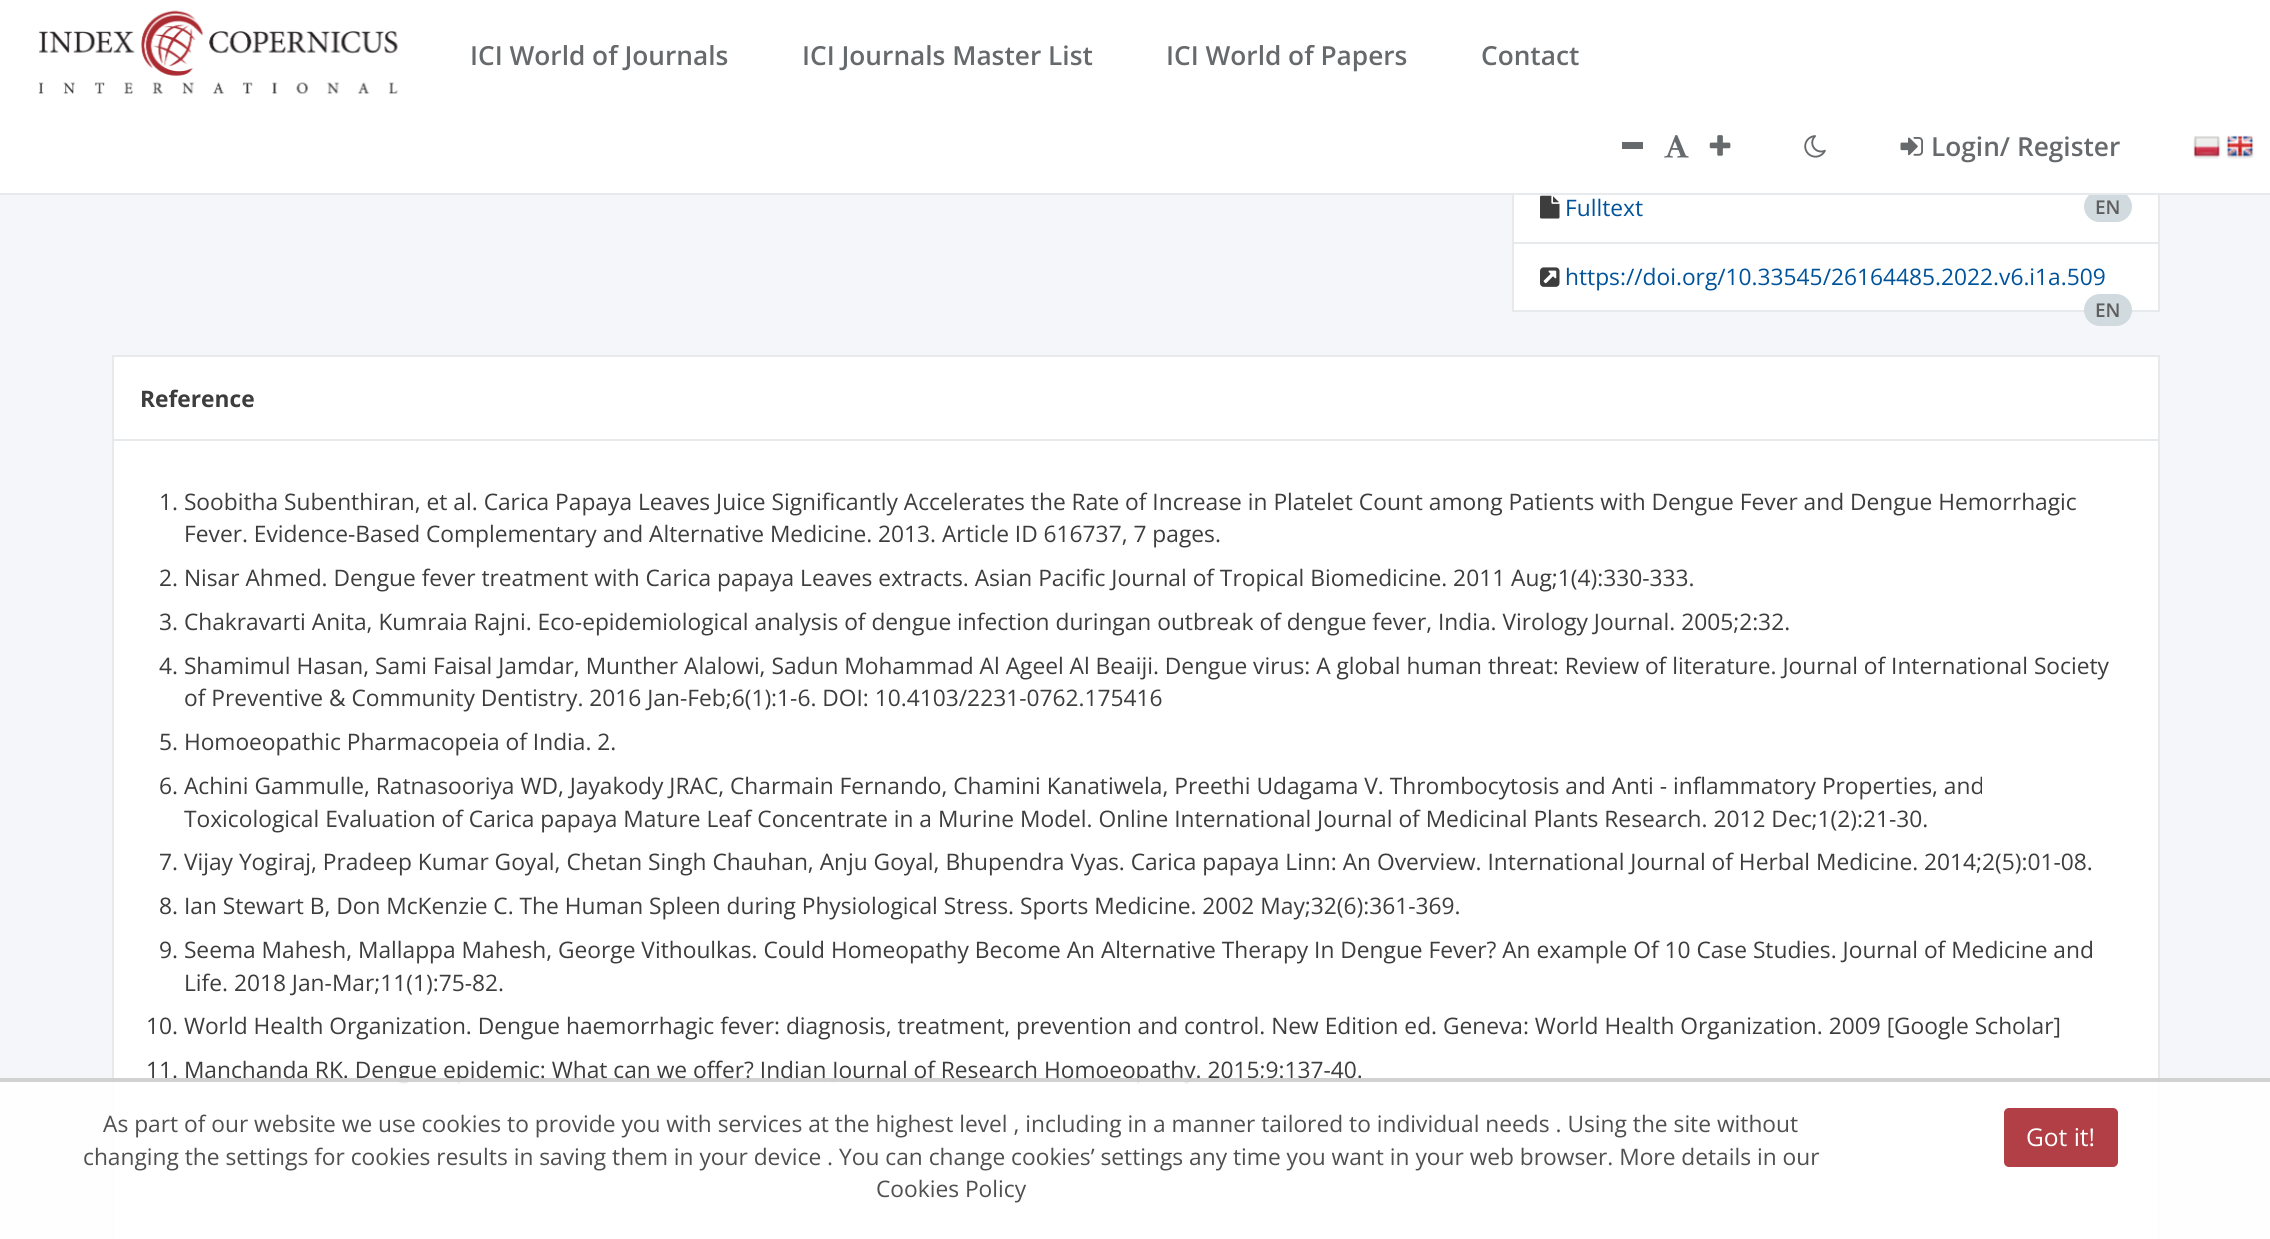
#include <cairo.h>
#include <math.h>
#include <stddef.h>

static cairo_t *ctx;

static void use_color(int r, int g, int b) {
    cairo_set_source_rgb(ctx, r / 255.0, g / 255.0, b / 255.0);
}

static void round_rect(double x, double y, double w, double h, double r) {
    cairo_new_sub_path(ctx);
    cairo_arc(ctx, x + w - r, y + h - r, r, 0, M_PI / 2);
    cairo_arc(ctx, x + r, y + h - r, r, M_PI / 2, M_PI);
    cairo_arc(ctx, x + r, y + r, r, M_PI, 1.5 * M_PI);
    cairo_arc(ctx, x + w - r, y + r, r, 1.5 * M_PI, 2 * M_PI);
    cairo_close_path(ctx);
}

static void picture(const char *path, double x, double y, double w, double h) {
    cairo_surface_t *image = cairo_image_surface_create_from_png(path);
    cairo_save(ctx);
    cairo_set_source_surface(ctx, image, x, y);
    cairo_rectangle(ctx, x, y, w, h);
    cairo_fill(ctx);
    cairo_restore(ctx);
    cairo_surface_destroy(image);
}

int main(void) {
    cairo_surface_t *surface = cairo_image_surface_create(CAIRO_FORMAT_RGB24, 2270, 1239);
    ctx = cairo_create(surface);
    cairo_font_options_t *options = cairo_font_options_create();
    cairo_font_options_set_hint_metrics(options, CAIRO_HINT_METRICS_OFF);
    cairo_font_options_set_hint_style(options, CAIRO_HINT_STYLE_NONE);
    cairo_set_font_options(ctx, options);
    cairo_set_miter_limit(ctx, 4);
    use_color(244, 246, 250);
    cairo_paint(ctx);
    use_color(255, 255, 255);
    cairo_rectangle(ctx, 1514, 195, 644, 115);
    cairo_fill(ctx);
    cairo_rectangle(ctx, 1513, 173, 646, 138);
    use_color(231, 234, 236);
    cairo_stroke(ctx);
    use_color(209, 218, 222);
    round_rect(2084, 191, 48, 31, 15.5);
    cairo_fill(ctx);
    use_color(255, 255, 255);
    cairo_rectangle(ctx, 0, 0, 2270, 193);
    cairo_fill(ctx);
    use_color(231, 234, 236);
    cairo_rectangle(ctx, 0, 193, 2270, 2);
    cairo_fill(ctx);
    picture("img1.png", 38, 10, 360, 84);
    cairo_select_font_face(ctx, "Open Sans SemiBold", CAIRO_FONT_SLANT_NORMAL, CAIRO_FONT_WEIGHT_NORMAL);
    cairo_set_font_size(ctx, 26.25);
    use_color(103, 106, 108);
    cairo_move_to(ctx, 470, 65);
    cairo_show_text(ctx, "ICI World of Journals");
    cairo_move_to(ctx, 802, 65);
    cairo_show_text(ctx, "ICI Journals Master List");
    cairo_move_to(ctx, 1166, 65);
    cairo_show_text(ctx, "ICI World of Papers");
    cairo_move_to(ctx, 1481, 65);
    cairo_show_text(ctx, "Contact");
    cairo_rectangle(ctx, 1622, 142, 21, 7);
    cairo_fill(ctx);
    picture("img2.png", 1664, 135, 25, 23);
    picture("img3.png", 1709, 135, 22, 21);
    picture("img4.png", 1804, 135, 22, 23);
    picture("img5.png", 1900, 137, 23, 19);
    cairo_move_to(ctx, 1931, 156);
    cairo_show_text(ctx, "Login/ Register");
    picture("img6.png", 2193, 136, 28, 23);
    picture("img7.png", 2226, 135, 28, 24);
    picture("img8.png", 1540, 195, 20, 24);
    cairo_select_font_face(ctx, "Open Sans", CAIRO_FONT_SLANT_NORMAL, CAIRO_FONT_WEIGHT_NORMAL);
    cairo_set_font_size(ctx, 22.75);
    use_color(0, 83, 155);
    cairo_move_to(ctx, 1565, 216);
    cairo_show_text(ctx, "Fulltext");
    cairo_select_font_face(ctx, "Open Sans SemiBold", CAIRO_FONT_SLANT_NORMAL, CAIRO_FONT_WEIGHT_NORMAL);
    cairo_set_font_size(ctx, 19);
    use_color(94, 94, 94);
    cairo_move_to(ctx, 2095, 214);
    cairo_show_text(ctx, "EN");
    use_color(231, 234, 236);
    cairo_rectangle(ctx, 1514, 242, 644, 2);
    cairo_fill(ctx);
    picture("img9.png", 1540, 267, 20, 20);
    cairo_select_font_face(ctx, "Open Sans", CAIRO_FONT_SLANT_NORMAL, CAIRO_FONT_WEIGHT_NORMAL);
    cairo_set_font_size(ctx, 22.75);
    use_color(0, 83, 155);
    cairo_move_to(ctx, 1565, 285);
    cairo_show_text(ctx, "https://doi.org/10.33545/26164485.2022.v6.i1a.509");
    use_color(209, 218, 222);
    round_rect(2084, 294, 48, 32, 16);
    cairo_fill(ctx);
    cairo_select_font_face(ctx, "Open Sans SemiBold", CAIRO_FONT_SLANT_NORMAL, CAIRO_FONT_WEIGHT_NORMAL);
    cairo_set_font_size(ctx, 19);
    use_color(94, 94, 94);
    cairo_move_to(ctx, 2095, 317);
    cairo_show_text(ctx, "EN");
    use_color(255, 255, 255);
    cairo_rectangle(ctx, 114, 357, 2044, 82);
    cairo_fill(ctx);
    use_color(231, 234, 236);
    cairo_rectangle(ctx, 112, 355, 2048, 2);
    cairo_fill(ctx);
    cairo_rectangle(ctx, 2158, 355, 2, 84);
    cairo_fill(ctx);
    cairo_rectangle(ctx, 112, 355, 2, 84);
    cairo_fill(ctx);
    cairo_select_font_face(ctx, "Open Sans", CAIRO_FONT_SLANT_NORMAL, CAIRO_FONT_WEIGHT_BOLD);
    cairo_set_font_size(ctx, 22.75);
    use_color(61, 61, 61);
    cairo_move_to(ctx, 140, 407);
    cairo_show_text(ctx, "Reference");
    use_color(255, 255, 255);
    cairo_rectangle(ctx, 113, 440, 2046, 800);
    cairo_fill_preserve(ctx);
    use_color(231, 234, 236);
    cairo_stroke(ctx);
    cairo_select_font_face(ctx, "Open Sans", CAIRO_FONT_SLANT_NORMAL, CAIRO_FONT_WEIGHT_NORMAL);
    use_color(61, 61, 61);
    cairo_move_to(ctx, 159, 510);
    cairo_show_text(ctx, "1. Soobitha Subenthiran, et al. Carica Papaya Leaves Juice Significantly Accelerates the Rate of Increase in Platelet Count among Patients with Dengue Fever and Dengue Hemorrhagic");
    cairo_move_to(ctx, 184, 542);
    cairo_show_text(ctx, "Fever. Evidence-Based Complementary and Alternative Medicine. 2013. Article ID 616737, 7 pages.");
    cairo_move_to(ctx, 159, 586);
    cairo_show_text(ctx, "2. Nisar Ahmed. Dengue fever treatment with Carica papaya Leaves extracts. Asian Pacific Journal of Tropical Biomedicine. 2011 Aug;1(4):330-333.");
    cairo_move_to(ctx, 159, 630);
    cairo_show_text(ctx, "3. Chakravarti Anita, Kumraia Rajni. Eco-epidemiological analysis of dengue infection duringan outbreak of dengue fever, India. Virology Journal. 2005;2:32.");
    cairo_move_to(ctx, 159, 674);
    cairo_show_text(ctx, "4. Shamimul Hasan, Sami Faisal Jamdar, Munther Alalowi, Sadun Mohammad Al Ageel Al Beaiji. Dengue virus: A global human threat: Review of literature. Journal of International Society");
    cairo_move_to(ctx, 184, 706);
    cairo_show_text(ctx, "of Preventive & Community Dentistry. 2016 Jan-Feb;6(1):1-6. DOI: 10.4103/2231-0762.175416");
    cairo_move_to(ctx, 159, 750);
    cairo_show_text(ctx, "5. Homoeopathic Pharmacopeia of India. 2.");
    cairo_move_to(ctx, 159, 794);
    cairo_show_text(ctx, "6. Achini Gammulle, Ratnasooriya WD, Jayakody JRAC, Charmain Fernando, Chamini Kanatiwela, Preethi Udagama V. Thrombocytosis and Anti - inflammatory Properties, and");
    cairo_move_to(ctx, 184, 827);
    cairo_show_text(ctx, "Toxicological Evaluation of Carica papaya Mature Leaf Concentrate in a Murine Model. Online International Journal of Medicinal Plants Research. 2012 Dec;1(2):21-30.");
    cairo_move_to(ctx, 159, 870);
    cairo_show_text(ctx, "7. Vijay Yogiraj, Pradeep Kumar Goyal, Chetan Singh Chauhan, Anju Goyal, Bhupendra Vyas. Carica papaya Linn: An Overview. International Journal of Herbal Medicine. 2014;2(5):01-08.");
    cairo_move_to(ctx, 159, 914);
    cairo_show_text(ctx, "8. Ian Stewart B, Don McKenzie C. The Human Spleen during Physiological Stress. Sports Medicine. 2002 May;32(6):361-369.");
    cairo_move_to(ctx, 159, 958);
    cairo_show_text(ctx, "9. Seema Mahesh, Mallappa Mahesh, George Vithoulkas. Could Homeopathy Become An Alternative Therapy In Dengue Fever? An example Of 10 Case Studies. Journal of Medicine and");
    cairo_move_to(ctx, 184, 991);
    cairo_show_text(ctx, "Life. 2018 Jan-Mar;11(1):75-82.");
    cairo_move_to(ctx, 146, 1034);
    cairo_show_text(ctx, "10. World Health Organization. Dengue haemorrhagic fever: diagnosis, treatment, prevention and control. New Edition ed. Geneva: World Health Organization. 2009 [Google Scholar]");
    cairo_move_to(ctx, 146, 1078);
    cairo_show_text(ctx, "11. Manchanda RK. Dengue epidemic: What can we offer? Indian Journal of Research Homoeopathy. 2015;9:137-40.");
    cairo_set_source_rgba(ctx, 1, 1, 1, 0.9);
    cairo_rectangle(ctx, 0, 1078, 2270, 161);
    cairo_fill(ctx);
    cairo_set_source_rgba(ctx, 0.8, 0.8, 0.8, 0.9);
    cairo_rectangle(ctx, 0, 1078, 2270, 4);
    cairo_fill(ctx);
    use_color(80, 80, 80);
    cairo_move_to(ctx, 103, 1132);
    cairo_show_text(ctx, "As part of our website we use cookies to provide you with services at the highest level , including in a manner tailored to individual needs . Using the site without");
    cairo_move_to(ctx, 83, 1165);
    cairo_show_text(ctx, "changing the settings for cookies results in saving them in your device . You can change cookies’ settings any time you want in your web browser. More details in our");
    cairo_move_to(ctx, 876, 1197);
    cairo_show_text(ctx, "Cookies Policy");
    cairo_set_source_rgba(ctx, 0.667, 0.169, 0.192, 0.9);
    round_rect(2004, 1108, 114, 59, 5);
    cairo_fill(ctx);
    cairo_set_font_size(ctx, 24.5);
    use_color(255, 255, 255);
    cairo_move_to(ctx, 2026, 1146);
    cairo_show_text(ctx, "Got it!");
    cairo_surface_write_to_png(surface, "result.png");
    cairo_font_options_destroy(options);
    cairo_destroy(ctx);
    cairo_surface_destroy(surface);
    return 0;
}
